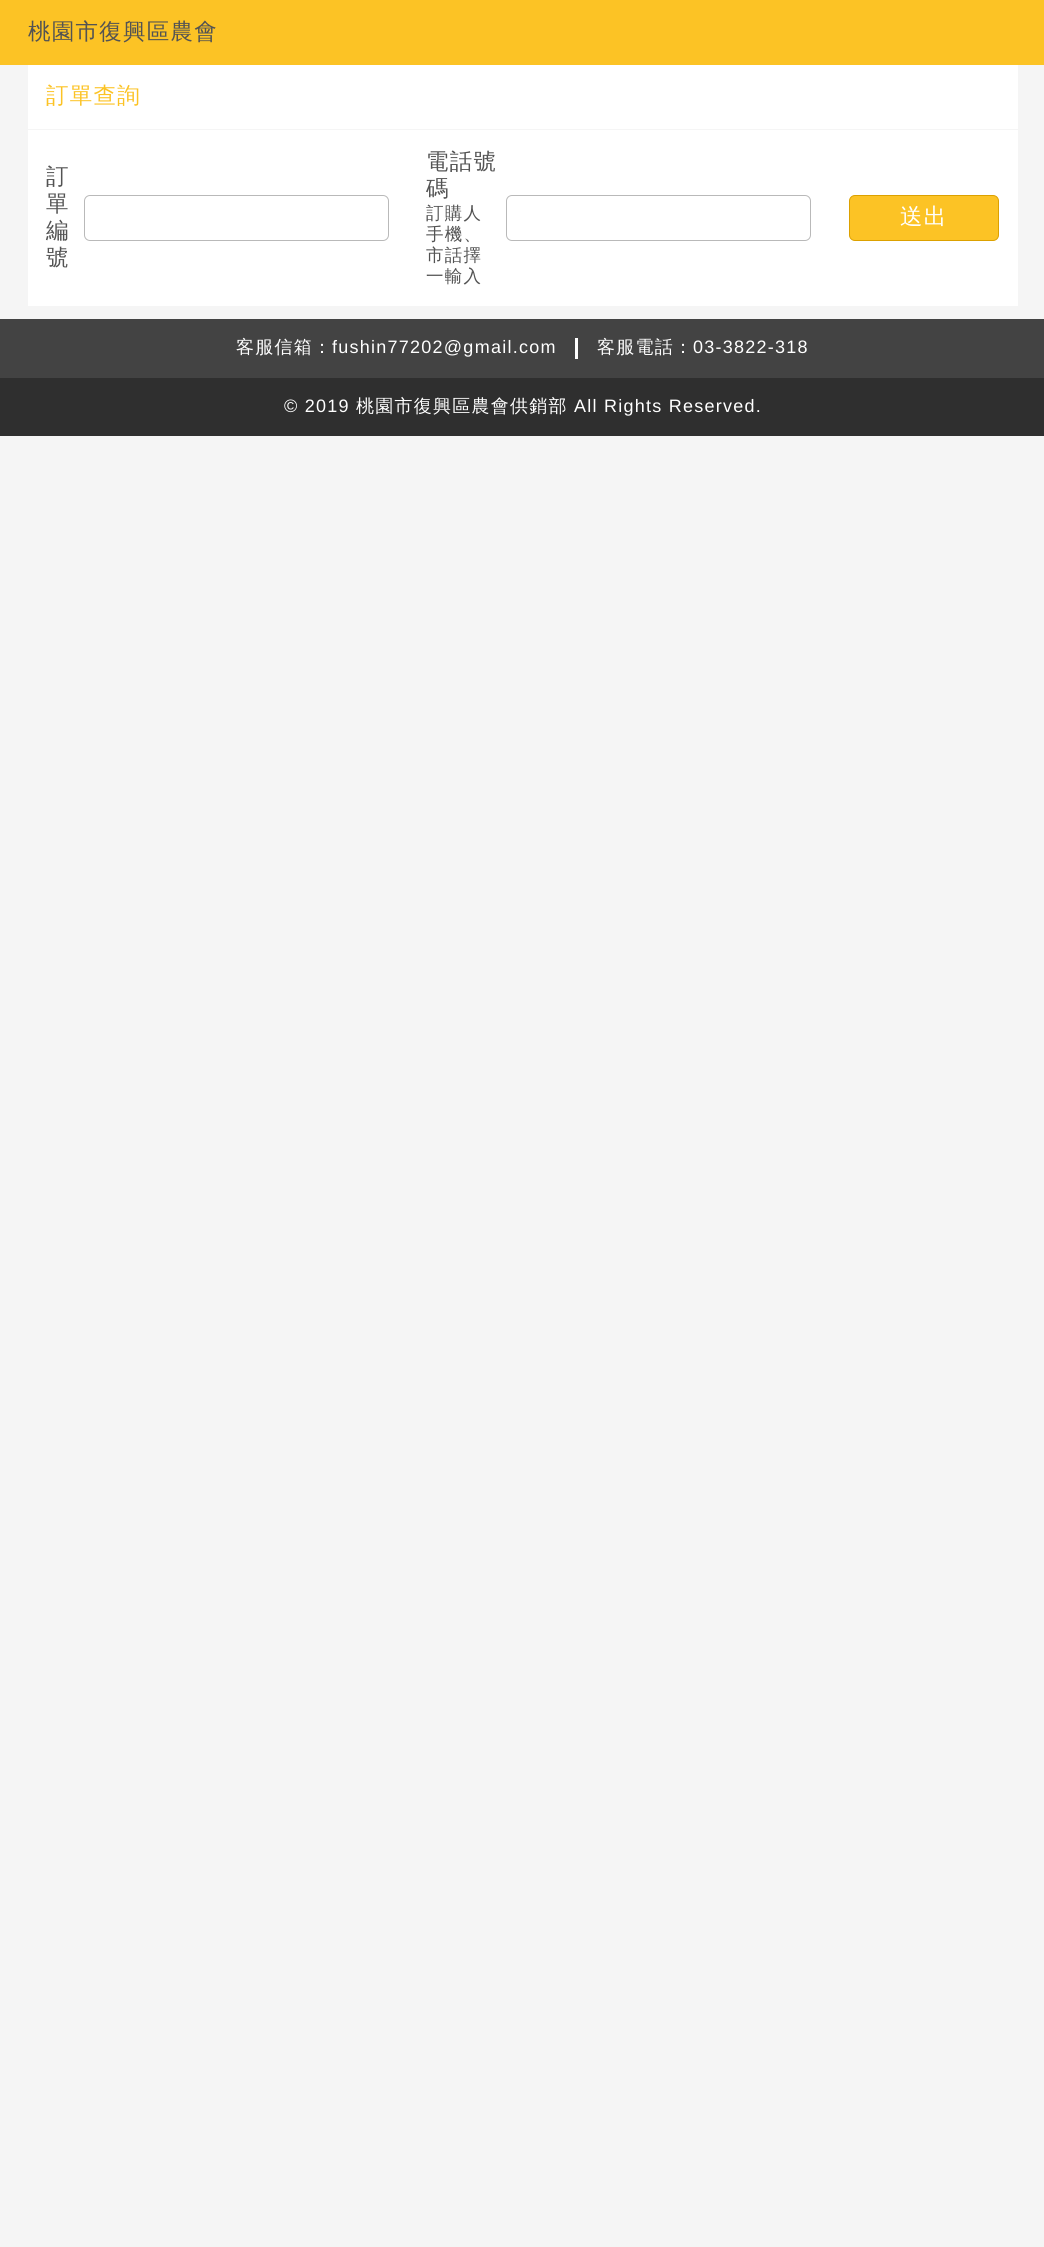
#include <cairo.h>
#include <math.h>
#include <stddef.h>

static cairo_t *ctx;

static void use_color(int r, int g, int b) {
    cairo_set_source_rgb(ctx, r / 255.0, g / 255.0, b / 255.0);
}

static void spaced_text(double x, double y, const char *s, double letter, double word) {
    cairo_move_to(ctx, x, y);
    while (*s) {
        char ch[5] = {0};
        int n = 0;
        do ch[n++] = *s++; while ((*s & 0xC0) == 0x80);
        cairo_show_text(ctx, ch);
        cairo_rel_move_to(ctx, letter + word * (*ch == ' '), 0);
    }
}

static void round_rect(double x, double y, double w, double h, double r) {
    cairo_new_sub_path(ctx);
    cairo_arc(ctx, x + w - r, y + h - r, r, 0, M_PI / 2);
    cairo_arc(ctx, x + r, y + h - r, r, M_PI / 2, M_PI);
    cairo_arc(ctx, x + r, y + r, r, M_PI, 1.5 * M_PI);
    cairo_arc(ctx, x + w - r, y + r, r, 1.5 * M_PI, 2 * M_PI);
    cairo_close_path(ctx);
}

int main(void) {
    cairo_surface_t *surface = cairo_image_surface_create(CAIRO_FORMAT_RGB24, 1044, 2247);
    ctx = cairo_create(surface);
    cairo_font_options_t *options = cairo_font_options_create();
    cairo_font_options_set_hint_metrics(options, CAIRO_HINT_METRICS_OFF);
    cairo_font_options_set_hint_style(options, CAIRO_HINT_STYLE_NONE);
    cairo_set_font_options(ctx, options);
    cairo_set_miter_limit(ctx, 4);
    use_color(245, 245, 245);
    cairo_paint(ctx);
    use_color(252, 195, 37);
    cairo_rectangle(ctx, 0, 0, 1044, 65);
    cairo_fill(ctx);
    cairo_select_font_face(ctx, "WenQuanYi Zen Hei Medium", CAIRO_FONT_SLANT_NORMAL, CAIRO_FONT_WEIGHT_NORMAL);
    cairo_set_font_size(ctx, 22.5);
    use_color(83, 83, 83);
    spaced_text(28, 39, "桃園市復興區農會", 1.25, 0);
    use_color(255, 255, 255);
    cairo_rectangle(ctx, 28, 65, 990, 241);
    cairo_fill(ctx);
    use_color(245, 245, 245);
    cairo_rectangle(ctx, 28, 129, 990, 1);
    cairo_fill(ctx);
    use_color(252, 195, 37);
    spaced_text(46, 103, "訂單查詢", 1.25, 0);
    use_color(83, 83, 83);
    spaced_text(46, 184, "訂", 1.25, 0);
    spaced_text(46, 211, "單", 1.25, 0);
    spaced_text(46, 238, "編", 1.25, 0);
    spaced_text(46, 265, "號", 1.25, 0);
    round_rect(84.5, 195.5, 304, 45, 5.5);
    use_color(185, 185, 185);
    cairo_set_line_width(ctx, 1);
    cairo_stroke(ctx);
    use_color(83, 83, 83);
    spaced_text(426, 169, "電話號", 1.25, 0);
    spaced_text(426, 196, "碼", 1.25, 0);
    cairo_set_font_size(ctx, 17.5);
    spaced_text(426, 219, "訂購人", 1.25, 0);
    spaced_text(426, 240, "手機、", 1.25, 0);
    spaced_text(426, 261, "市話擇", 1.25, 0);
    spaced_text(426, 282, "一輸入", 1.25, 0);
    round_rect(506.5, 195.5, 304, 45, 5.5);
    use_color(185, 185, 185);
    cairo_stroke(ctx);
    use_color(252, 195, 37);
    round_rect(849.5, 195.5, 149, 45, 5.5);
    cairo_fill_preserve(ctx);
    use_color(220, 161, 0);
    cairo_stroke(ctx);
    cairo_set_font_size(ctx, 22.5);
    use_color(255, 255, 255);
    spaced_text(900, 224, "送出", 1.25, 0);
    use_color(67, 67, 67);
    cairo_rectangle(ctx, 0, 319, 1044, 59);
    cairo_fill(ctx);
    use_color(255, 255, 255);
    cairo_rectangle(ctx, 575, 338, 3, 21);
    cairo_fill(ctx);
    cairo_set_font_size(ctx, 18);
    spaced_text(236, 353, "客服信箱：", 1.25, 0);
    cairo_select_font_face(ctx, "Liberation Sans", CAIRO_FONT_SLANT_NORMAL, CAIRO_FONT_WEIGHT_NORMAL);
    spaced_text(332, 353, "fushin77202@gmail.com", 1.25, 0);
    cairo_select_font_face(ctx, "WenQuanYi Zen Hei Medium", CAIRO_FONT_SLANT_NORMAL, CAIRO_FONT_WEIGHT_NORMAL);
    spaced_text(597, 353, "客服電話：", 1.25, 0);
    cairo_select_font_face(ctx, "Liberation Sans", CAIRO_FONT_SLANT_NORMAL, CAIRO_FONT_WEIGHT_NORMAL);
    spaced_text(693, 353, "03-3822-318", 1.25, 0);
    use_color(47, 47, 47);
    cairo_rectangle(ctx, 0, 378, 1044, 58);
    cairo_fill(ctx);
    use_color(255, 255, 255);
    spaced_text(284, 412, "© 2019", 1.25, 0);
    cairo_select_font_face(ctx, "WenQuanYi Zen Hei Medium", CAIRO_FONT_SLANT_NORMAL, CAIRO_FONT_WEIGHT_NORMAL);
    spaced_text(356, 412, "桃園市復興區農會供銷部", 1.25, 0);
    cairo_select_font_face(ctx, "Liberation Sans", CAIRO_FONT_SLANT_NORMAL, CAIRO_FONT_WEIGHT_NORMAL);
    spaced_text(574, 412, "All Rights Reserved.", 1.25, 0);
    cairo_surface_write_to_png(surface, "result.png");
    cairo_font_options_destroy(options);
    cairo_destroy(ctx);
    cairo_surface_destroy(surface);
    return 0;
}
